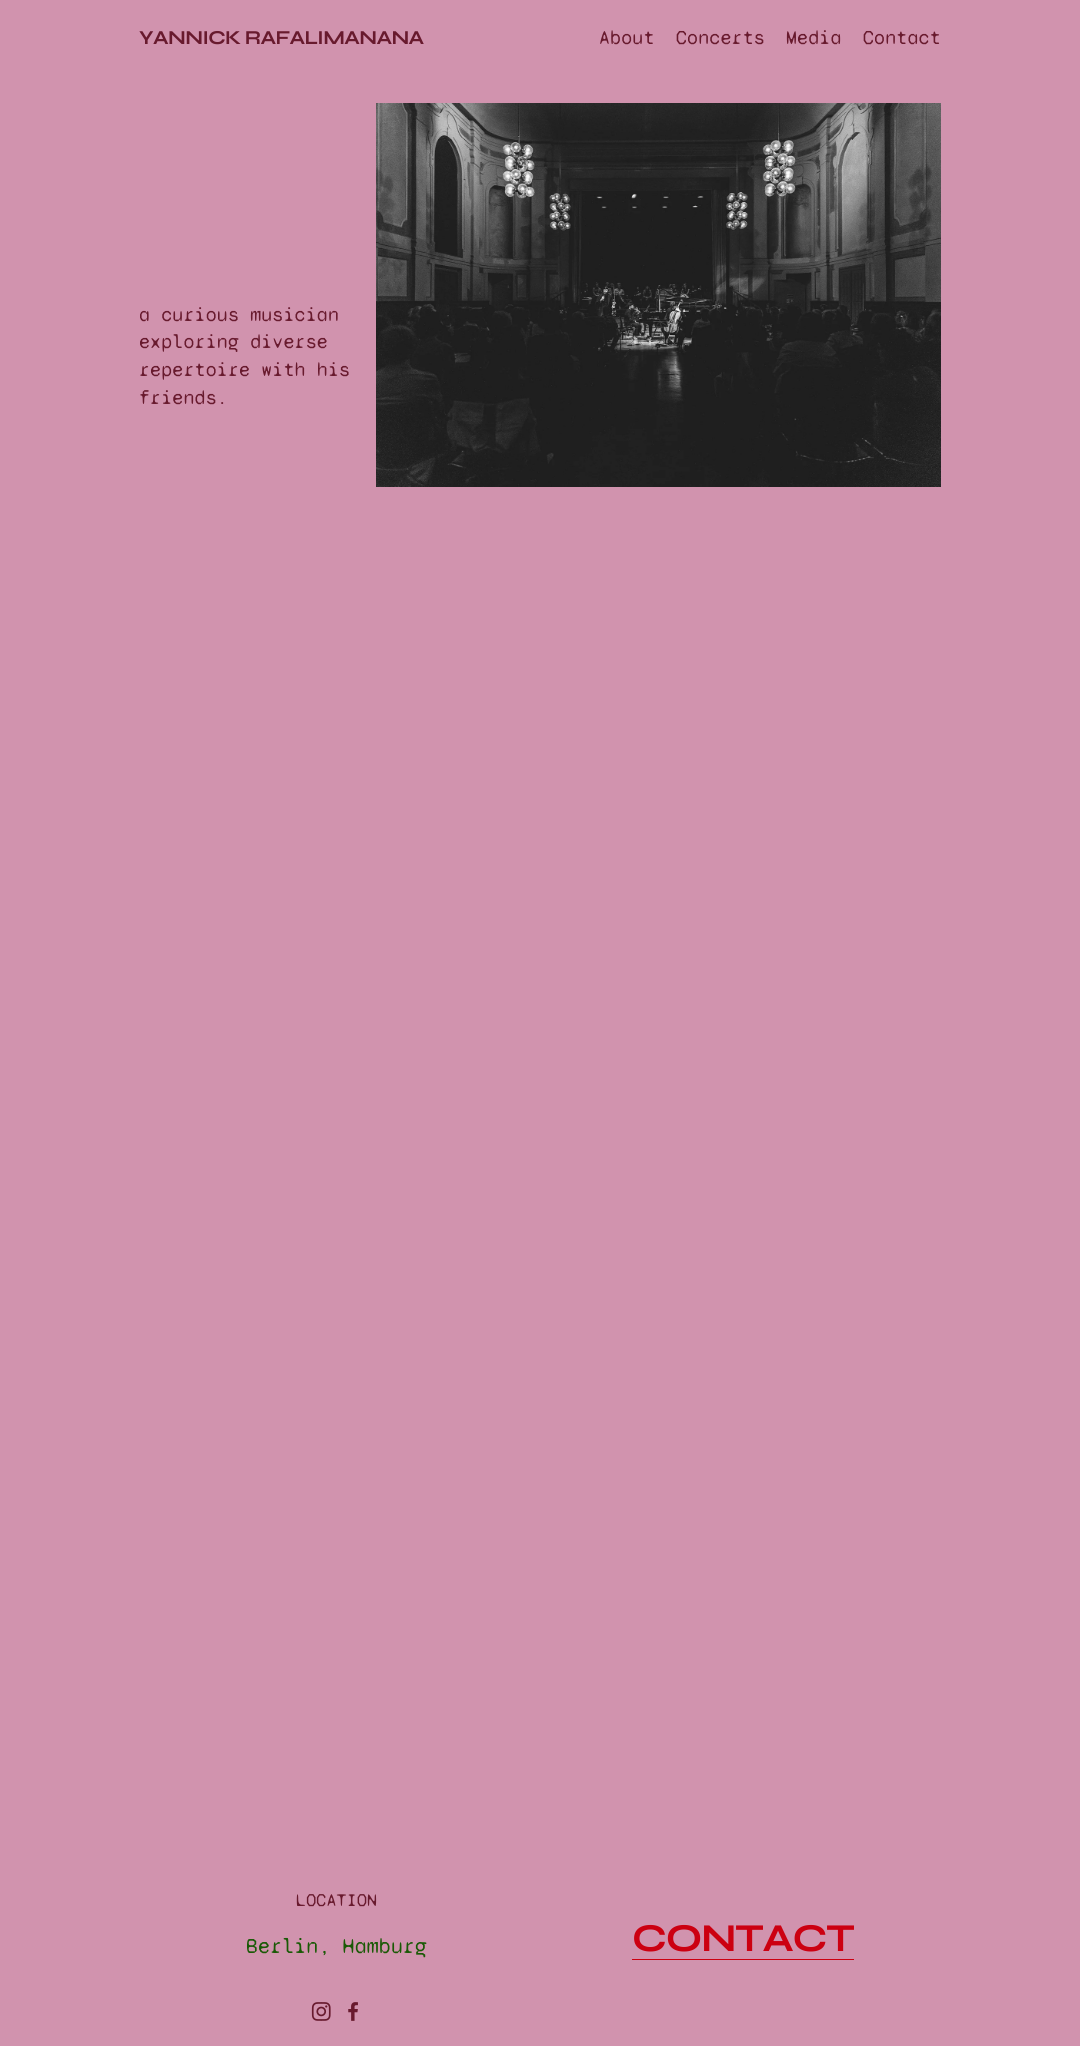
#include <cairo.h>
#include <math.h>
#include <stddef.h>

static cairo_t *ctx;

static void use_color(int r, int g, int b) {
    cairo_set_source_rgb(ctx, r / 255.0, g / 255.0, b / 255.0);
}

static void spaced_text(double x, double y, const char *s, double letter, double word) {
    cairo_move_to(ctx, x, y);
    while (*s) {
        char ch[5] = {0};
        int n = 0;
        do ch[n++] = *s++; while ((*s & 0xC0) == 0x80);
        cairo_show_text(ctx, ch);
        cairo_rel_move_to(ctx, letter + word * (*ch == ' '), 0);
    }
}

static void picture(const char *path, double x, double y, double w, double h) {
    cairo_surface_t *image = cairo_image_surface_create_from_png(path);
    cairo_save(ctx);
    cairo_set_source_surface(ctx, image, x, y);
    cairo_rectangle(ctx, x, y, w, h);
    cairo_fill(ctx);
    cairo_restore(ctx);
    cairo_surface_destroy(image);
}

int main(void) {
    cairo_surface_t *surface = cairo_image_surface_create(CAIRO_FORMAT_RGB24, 1080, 2046);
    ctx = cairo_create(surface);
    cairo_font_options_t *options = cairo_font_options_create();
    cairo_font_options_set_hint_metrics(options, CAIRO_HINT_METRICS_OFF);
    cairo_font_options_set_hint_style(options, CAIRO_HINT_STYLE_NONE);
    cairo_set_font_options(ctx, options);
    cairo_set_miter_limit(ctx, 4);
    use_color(209, 147, 174);
    cairo_paint(ctx);
    cairo_select_font_face(ctx, "Syne", CAIRO_FONT_SLANT_NORMAL, CAIRO_FONT_WEIGHT_BOLD);
    cairo_set_font_size(ctx, 19.75);
    use_color(104, 26, 46);
    spaced_text(139, 44, "YANNICK RAFALIMANANA", -0.6, 0);
    cairo_select_font_face(ctx, "Syne Mono", CAIRO_FONT_SLANT_NORMAL, CAIRO_FONT_WEIGHT_NORMAL);
    spaced_text(599, 44, "About", 0.25, 0);
    spaced_text(676, 44, "Concerts", 0.25, 0);
    spaced_text(786, 44, "Media", 0.25, 0);
    spaced_text(863, 44, "Contact", 0.25, 0);
    spaced_text(139, 321, "a curious musician", 0.25, 0);
    spaced_text(139, 348, "exploring diverse", 0.25, 0);
    spaced_text(139, 376, "repertoire with his", 0.25, 0);
    spaced_text(139, 404, "friends.", 0.25, 0);
    picture("img1.png", 376, 103, 565, 384);
    cairo_set_font_size(ctx, 18);
    spaced_text(296, 1906, "LOCATION", 0.25, 0);
    cairo_set_font_size(ctx, 21.5);
    use_color(25, 89, 5);
    spaced_text(246, 1953, "Berlin, Hamburg", 0.25, 0);
    cairo_select_font_face(ctx, "Syne", CAIRO_FONT_SLANT_NORMAL, CAIRO_FONT_WEIGHT_BOLD);
    cairo_set_font_size(ctx, 39.5);
    use_color(204, 0, 17);
    spaced_text(632, 1951, "CONTACT", -1.25, 0);
    cairo_rectangle(ctx, 632, 1959, 222, 1);
    cairo_fill(ctx);
    picture("img2.png", 311, 2002, 20, 19);
    picture("img3.png", 348, 2002, 10, 19);
    cairo_surface_write_to_png(surface, "result.png");
    cairo_font_options_destroy(options);
    cairo_destroy(ctx);
    cairo_surface_destroy(surface);
    return 0;
}
